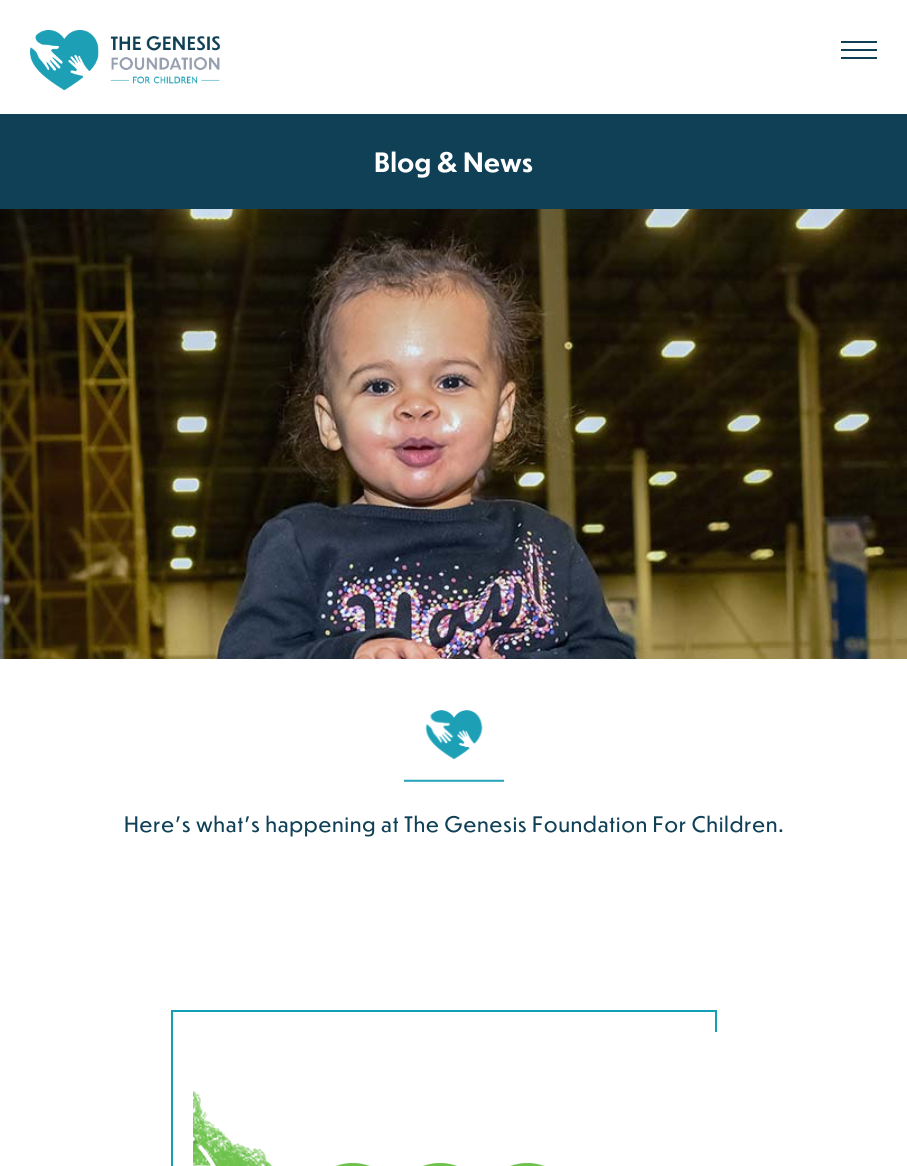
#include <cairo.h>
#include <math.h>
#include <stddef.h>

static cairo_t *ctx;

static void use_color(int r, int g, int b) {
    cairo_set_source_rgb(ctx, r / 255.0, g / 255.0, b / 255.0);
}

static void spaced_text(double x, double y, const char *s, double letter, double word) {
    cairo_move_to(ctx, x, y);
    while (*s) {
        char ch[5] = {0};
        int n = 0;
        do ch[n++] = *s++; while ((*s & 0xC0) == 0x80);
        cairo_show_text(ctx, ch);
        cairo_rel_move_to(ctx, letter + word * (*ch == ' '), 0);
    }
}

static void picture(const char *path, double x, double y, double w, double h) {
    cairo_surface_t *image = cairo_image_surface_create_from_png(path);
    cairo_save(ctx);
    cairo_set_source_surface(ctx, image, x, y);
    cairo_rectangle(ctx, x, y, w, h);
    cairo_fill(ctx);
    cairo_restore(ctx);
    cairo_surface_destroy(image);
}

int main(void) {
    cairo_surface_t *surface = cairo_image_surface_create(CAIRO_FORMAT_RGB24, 907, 1166);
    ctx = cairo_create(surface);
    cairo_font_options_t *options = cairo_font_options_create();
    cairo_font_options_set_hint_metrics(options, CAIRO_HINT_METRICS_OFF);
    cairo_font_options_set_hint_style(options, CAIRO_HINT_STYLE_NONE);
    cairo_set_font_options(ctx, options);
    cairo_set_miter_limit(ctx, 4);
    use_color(255, 255, 255);
    cairo_paint(ctx);
    picture("img1.png", 30, 30, 190, 61);
    use_color(15, 64, 86);
    cairo_rectangle(ctx, 841, 41, 36, 2);
    cairo_fill(ctx);
    cairo_rectangle(ctx, 841, 49, 36, 2);
    cairo_fill(ctx);
    cairo_rectangle(ctx, 841, 57, 36, 2);
    cairo_fill(ctx);
    cairo_rectangle(ctx, 0, 114, 907, 95);
    cairo_fill(ctx);
    cairo_select_font_face(ctx, "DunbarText", CAIRO_FONT_SLANT_NORMAL, CAIRO_FONT_WEIGHT_BOLD);
    cairo_set_font_size(ctx, 26.25);
    use_color(255, 255, 255);
    cairo_move_to(ctx, 374, 172);
    cairo_show_text(ctx, "Blog & News");
    picture("img2.png", 0, 209, 907, 450);
    picture("img3.png", 404, 710, 100, 72);
    cairo_select_font_face(ctx, "DunbarText", CAIRO_FONT_SLANT_NORMAL, CAIRO_FONT_WEIGHT_NORMAL);
    cairo_set_font_size(ctx, 21);
    use_color(15, 64, 86);
    spaced_text(124, 832, "Here’s what’s happening at The Genesis Foundation For Children.", 0.53, 0);
    cairo_rectangle(ctx, 172, 1011, 544, 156);
    use_color(19, 159, 181);
    cairo_stroke(ctx);
    picture("img4.png", 193, 1032, 524, 134);
    cairo_surface_write_to_png(surface, "result.png");
    cairo_font_options_destroy(options);
    cairo_destroy(ctx);
    cairo_surface_destroy(surface);
    return 0;
}
